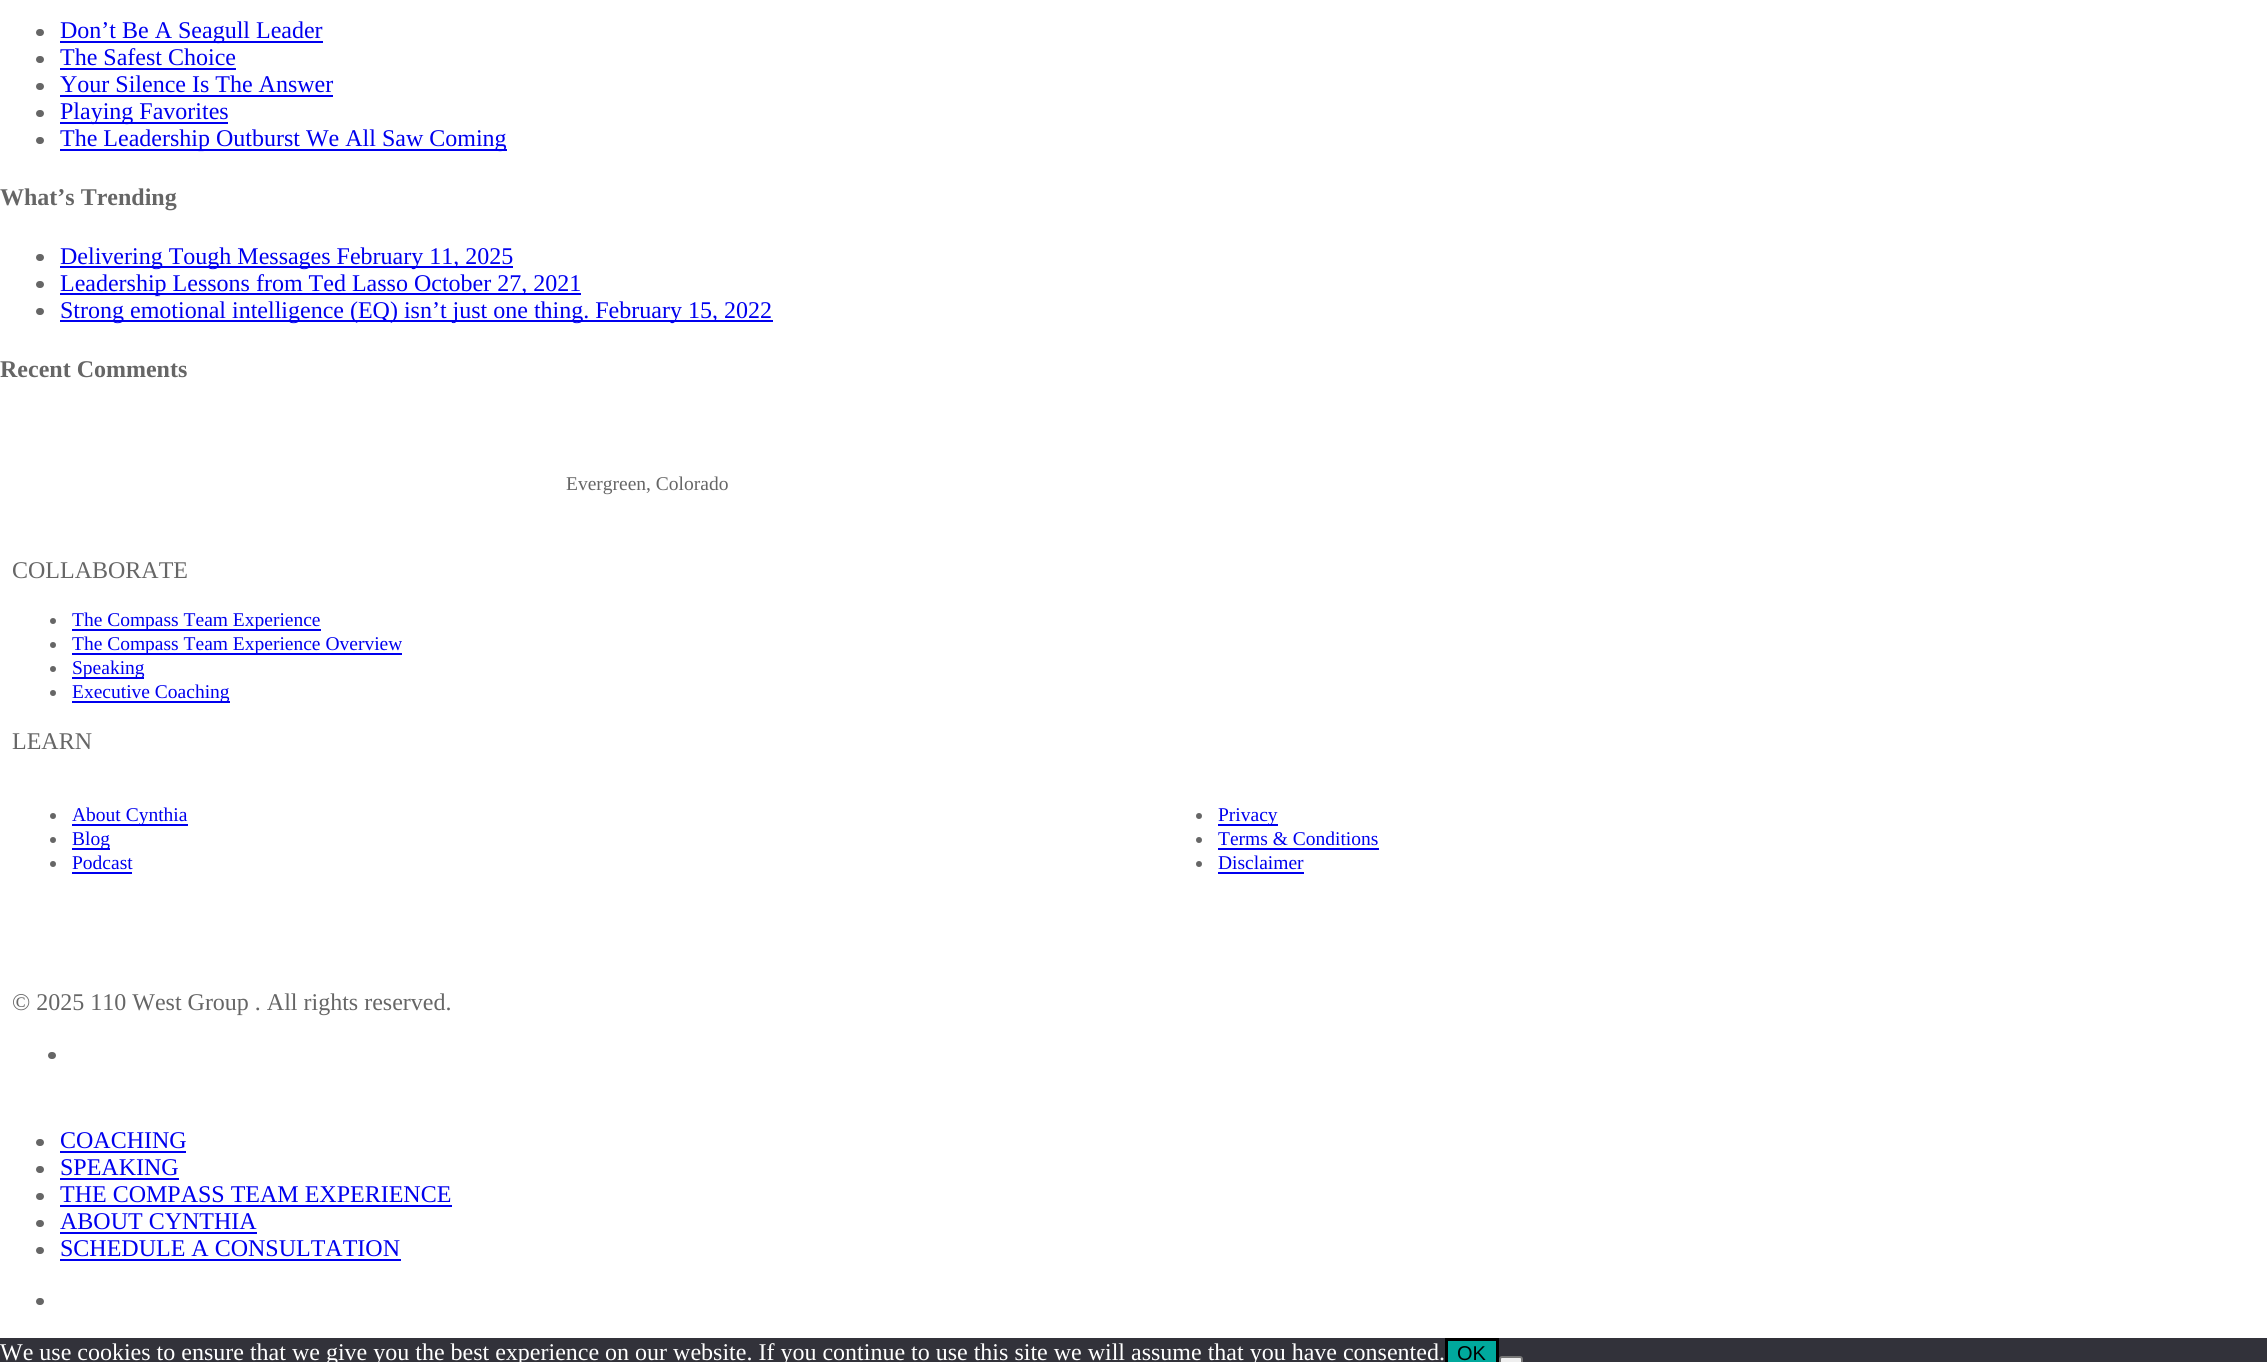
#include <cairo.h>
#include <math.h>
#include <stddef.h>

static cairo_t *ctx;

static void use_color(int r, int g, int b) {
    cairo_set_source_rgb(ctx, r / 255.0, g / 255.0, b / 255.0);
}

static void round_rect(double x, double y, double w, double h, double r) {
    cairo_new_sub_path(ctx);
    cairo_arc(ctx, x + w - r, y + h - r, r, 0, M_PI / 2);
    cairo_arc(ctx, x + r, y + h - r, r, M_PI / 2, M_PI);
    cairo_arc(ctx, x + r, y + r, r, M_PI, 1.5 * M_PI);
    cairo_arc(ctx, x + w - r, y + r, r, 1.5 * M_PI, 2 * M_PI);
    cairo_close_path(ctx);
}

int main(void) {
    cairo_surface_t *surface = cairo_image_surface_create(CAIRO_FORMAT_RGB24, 2267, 1362);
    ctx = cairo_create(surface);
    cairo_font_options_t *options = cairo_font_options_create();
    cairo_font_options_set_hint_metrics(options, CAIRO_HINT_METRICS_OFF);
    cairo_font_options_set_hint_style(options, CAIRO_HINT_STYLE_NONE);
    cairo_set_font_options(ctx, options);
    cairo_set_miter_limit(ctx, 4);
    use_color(255, 255, 255);
    cairo_paint(ctx);
    use_color(102, 102, 102);
    round_rect(36, 29, 8, 7, 3.5);
    cairo_fill(ctx);
    use_color(0, 0, 238);
    cairo_rectangle(ctx, 60, 41, 263, 2);
    cairo_fill(ctx);
    cairo_select_font_face(ctx, "Liberation Serif", CAIRO_FONT_SLANT_NORMAL, CAIRO_FONT_WEIGHT_NORMAL);
    cairo_set_font_size(ctx, 24);
    cairo_move_to(ctx, 60, 38);
    cairo_show_text(ctx, "Don’t Be A Seagull Leader");
    use_color(102, 102, 102);
    round_rect(36, 56, 8, 7, 3.5);
    cairo_fill(ctx);
    use_color(0, 0, 238);
    cairo_move_to(ctx, 60, 65);
    cairo_show_text(ctx, "The Safest Choice");
    cairo_rectangle(ctx, 60, 68, 176, 2);
    cairo_fill(ctx);
    use_color(102, 102, 102);
    round_rect(36, 83, 8, 7, 3.5);
    cairo_fill(ctx);
    use_color(0, 0, 238);
    cairo_move_to(ctx, 60, 92);
    cairo_show_text(ctx, "Your Silence Is The Answer");
    cairo_rectangle(ctx, 60, 95, 273, 2);
    cairo_fill(ctx);
    use_color(102, 102, 102);
    round_rect(36, 110, 8, 7, 3.5);
    cairo_fill(ctx);
    use_color(0, 0, 238);
    cairo_rectangle(ctx, 60, 122, 168, 2);
    cairo_fill(ctx);
    cairo_move_to(ctx, 60, 119);
    cairo_show_text(ctx, "Playing Favorites");
    use_color(102, 102, 102);
    round_rect(36, 137, 8, 7, 3.5);
    cairo_fill(ctx);
    use_color(0, 0, 238);
    cairo_rectangle(ctx, 60, 149, 447, 2);
    cairo_fill(ctx);
    cairo_move_to(ctx, 60, 146);
    cairo_show_text(ctx, "The Leadership Outburst We All Saw Coming");
    cairo_select_font_face(ctx, "Liberation Serif", CAIRO_FONT_SLANT_NORMAL, CAIRO_FONT_WEIGHT_BOLD);
    use_color(102, 102, 102);
    cairo_move_to(ctx, 0, 205);
    cairo_show_text(ctx, "What’s Trending");
    round_rect(36, 254, 8, 7, 3.5);
    cairo_fill(ctx);
    use_color(0, 0, 238);
    cairo_rectangle(ctx, 60, 266, 453, 2);
    cairo_fill(ctx);
    cairo_select_font_face(ctx, "Liberation Serif", CAIRO_FONT_SLANT_NORMAL, CAIRO_FONT_WEIGHT_NORMAL);
    cairo_move_to(ctx, 60, 264);
    cairo_show_text(ctx, "Delivering Tough Messages February 11, 2025");
    use_color(102, 102, 102);
    round_rect(36, 281, 8, 7, 3.5);
    cairo_fill(ctx);
    use_color(0, 0, 238);
    cairo_rectangle(ctx, 60, 293, 521, 2);
    cairo_fill(ctx);
    cairo_move_to(ctx, 60, 291);
    cairo_show_text(ctx, "Leadership Lessons from Ted Lasso October 27, 2021");
    use_color(102, 102, 102);
    round_rect(36, 308, 8, 7, 3.5);
    cairo_fill(ctx);
    use_color(0, 0, 238);
    cairo_rectangle(ctx, 60, 320, 713, 2);
    cairo_fill(ctx);
    cairo_move_to(ctx, 60, 318);
    cairo_show_text(ctx, "Strong emotional intelligence (EQ) isn’t just one thing. February 15, 2022");
    cairo_select_font_face(ctx, "Liberation Serif", CAIRO_FONT_SLANT_NORMAL, CAIRO_FONT_WEIGHT_BOLD);
    use_color(102, 102, 102);
    cairo_move_to(ctx, 0, 377);
    cairo_show_text(ctx, "Recent Comments");
    cairo_select_font_face(ctx, "Liberation Serif", CAIRO_FONT_SLANT_NORMAL, CAIRO_FONT_WEIGHT_NORMAL);
    cairo_set_font_size(ctx, 19.5);
    cairo_move_to(ctx, 566, 490);
    cairo_show_text(ctx, "Evergreen, Colorado");
    cairo_set_font_size(ctx, 24);
    cairo_move_to(ctx, 12, 578);
    cairo_show_text(ctx, "COLLABORATE");
    cairo_new_path(ctx);
    cairo_arc(ctx, 53, 621, 3, 0, 2 * M_PI);
    cairo_fill(ctx);
    use_color(0, 0, 238);
    cairo_rectangle(ctx, 72, 629, 249, 2);
    cairo_fill(ctx);
    cairo_set_font_size(ctx, 19.5);
    cairo_move_to(ctx, 72, 626);
    cairo_show_text(ctx, "The Compass Team Experience");
    use_color(102, 102, 102);
    cairo_new_path(ctx);
    cairo_arc(ctx, 53, 645, 3, 0, 2 * M_PI);
    cairo_fill(ctx);
    use_color(0, 0, 238);
    cairo_rectangle(ctx, 72, 653, 330, 2);
    cairo_fill(ctx);
    cairo_move_to(ctx, 72, 650);
    cairo_show_text(ctx, "The Compass Team Experience Overview");
    use_color(102, 102, 102);
    cairo_new_path(ctx);
    cairo_arc(ctx, 53, 669, 3, 0, 2 * M_PI);
    cairo_fill(ctx);
    use_color(0, 0, 238);
    cairo_rectangle(ctx, 72, 677, 72, 2);
    cairo_fill(ctx);
    cairo_move_to(ctx, 72, 674);
    cairo_show_text(ctx, "Speaking");
    use_color(102, 102, 102);
    cairo_new_path(ctx);
    cairo_arc(ctx, 53, 693, 3, 0, 2 * M_PI);
    cairo_fill(ctx);
    use_color(0, 0, 238);
    cairo_rectangle(ctx, 72, 701, 158, 2);
    cairo_fill(ctx);
    cairo_move_to(ctx, 72, 698);
    cairo_show_text(ctx, "Executive Coaching");
    cairo_set_font_size(ctx, 24);
    use_color(102, 102, 102);
    cairo_move_to(ctx, 12, 749);
    cairo_show_text(ctx, "LEARN");
    cairo_new_path(ctx);
    cairo_arc(ctx, 53, 816, 3, 0, 2 * M_PI);
    cairo_fill(ctx);
    use_color(0, 0, 238);
    cairo_rectangle(ctx, 72, 824, 116, 2);
    cairo_fill(ctx);
    cairo_set_font_size(ctx, 19.5);
    cairo_move_to(ctx, 72, 821);
    cairo_show_text(ctx, "About Cynthia");
    use_color(102, 102, 102);
    cairo_new_path(ctx);
    cairo_arc(ctx, 53, 840, 3, 0, 2 * M_PI);
    cairo_fill(ctx);
    use_color(0, 0, 238);
    cairo_rectangle(ctx, 72, 848, 38, 2);
    cairo_fill(ctx);
    cairo_move_to(ctx, 72, 845);
    cairo_show_text(ctx, "Blog");
    use_color(102, 102, 102);
    cairo_new_path(ctx);
    cairo_arc(ctx, 53, 864, 3, 0, 2 * M_PI);
    cairo_fill(ctx);
    use_color(0, 0, 238);
    cairo_move_to(ctx, 72, 869);
    cairo_show_text(ctx, "Podcast");
    cairo_rectangle(ctx, 72, 872, 60, 2);
    cairo_fill(ctx);
    use_color(102, 102, 102);
    cairo_arc(ctx, 1199, 816, 3, 0, 2 * M_PI);
    cairo_fill(ctx);
    use_color(0, 0, 238);
    cairo_rectangle(ctx, 1218, 824, 60, 2);
    cairo_fill(ctx);
    cairo_move_to(ctx, 1218, 821);
    cairo_show_text(ctx, "Privacy");
    use_color(102, 102, 102);
    cairo_new_path(ctx);
    cairo_arc(ctx, 1199, 840, 3, 0, 2 * M_PI);
    cairo_fill(ctx);
    use_color(0, 0, 238);
    cairo_move_to(ctx, 1218, 845);
    cairo_show_text(ctx, "Terms & Conditions");
    cairo_rectangle(ctx, 1218, 848, 161, 2);
    cairo_fill(ctx);
    use_color(102, 102, 102);
    cairo_arc(ctx, 1199, 864, 3, 0, 2 * M_PI);
    cairo_fill(ctx);
    use_color(0, 0, 238);
    cairo_move_to(ctx, 1218, 869);
    cairo_show_text(ctx, "Disclaimer");
    cairo_rectangle(ctx, 1218, 872, 86, 2);
    cairo_fill(ctx);
    cairo_set_font_size(ctx, 24);
    use_color(102, 102, 102);
    cairo_move_to(ctx, 12, 1010);
    cairo_show_text(ctx, "© 2025 110 West Group . All rights reserved.");
    round_rect(48, 1052, 8, 7, 3.5);
    cairo_fill(ctx);
    round_rect(36, 1139, 8, 7, 3.5);
    cairo_fill(ctx);
    use_color(0, 0, 238);
    cairo_move_to(ctx, 60, 1148);
    cairo_show_text(ctx, "COACHING");
    cairo_rectangle(ctx, 60, 1151, 126, 2);
    cairo_fill(ctx);
    use_color(102, 102, 102);
    round_rect(36, 1166, 8, 7, 3.5);
    cairo_fill(ctx);
    use_color(0, 0, 238);
    cairo_move_to(ctx, 60, 1175);
    cairo_show_text(ctx, "SPEAKING");
    cairo_rectangle(ctx, 60, 1178, 119, 2);
    cairo_fill(ctx);
    use_color(102, 102, 102);
    round_rect(36, 1193, 8, 7, 3.5);
    cairo_fill(ctx);
    use_color(0, 0, 238);
    cairo_move_to(ctx, 60, 1202);
    cairo_show_text(ctx, "THE COMPASS TEAM EXPERIENCE");
    cairo_rectangle(ctx, 60, 1205, 392, 2);
    cairo_fill(ctx);
    use_color(102, 102, 102);
    round_rect(36, 1220, 8, 7, 3.5);
    cairo_fill(ctx);
    use_color(0, 0, 238);
    cairo_move_to(ctx, 60, 1229);
    cairo_show_text(ctx, "ABOUT CYNTHIA");
    cairo_rectangle(ctx, 60, 1232, 197, 2);
    cairo_fill(ctx);
    use_color(102, 102, 102);
    round_rect(36, 1247, 8, 7, 3.5);
    cairo_fill(ctx);
    use_color(0, 0, 238);
    cairo_move_to(ctx, 60, 1256);
    cairo_show_text(ctx, "SCHEDULE A CONSULTATION");
    cairo_rectangle(ctx, 60, 1259, 341, 2);
    cairo_fill(ctx);
    use_color(102, 102, 102);
    round_rect(36, 1298, 8, 7, 3.5);
    cairo_fill(ctx);
    use_color(50, 50, 58);
    cairo_rectangle(ctx, 0, 1338, 2267, 24);
    cairo_fill(ctx);
    use_color(255, 255, 255);
    cairo_move_to(ctx, 0, 1360);
    cairo_show_text(ctx, "We use cookies to ensure that we give you the best experience on our website. If you continue to use this site we will assume that you have consented.");
    use_color(0, 169, 157);
    cairo_rectangle(ctx, 1446.5, 1339.5, 51, 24);
    cairo_fill_preserve(ctx);
    use_color(0, 0, 0);
    cairo_set_line_width(ctx, 3);
    cairo_stroke(ctx);
    cairo_select_font_face(ctx, "Liberation Sans", CAIRO_FONT_SLANT_NORMAL, CAIRO_FONT_WEIGHT_NORMAL);
    cairo_set_font_size(ctx, 20);
    cairo_move_to(ctx, 1457, 1360);
    cairo_show_text(ctx, "OK");
    use_color(239, 239, 239);
    round_rect(1500, 1357, 22, 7, 2);
    cairo_fill_preserve(ctx);
    use_color(118, 118, 118);
    cairo_set_line_width(ctx, 2);
    cairo_stroke(ctx);
    cairo_surface_write_to_png(surface, "result.png");
    cairo_font_options_destroy(options);
    cairo_destroy(ctx);
    cairo_surface_destroy(surface);
    return 0;
}
